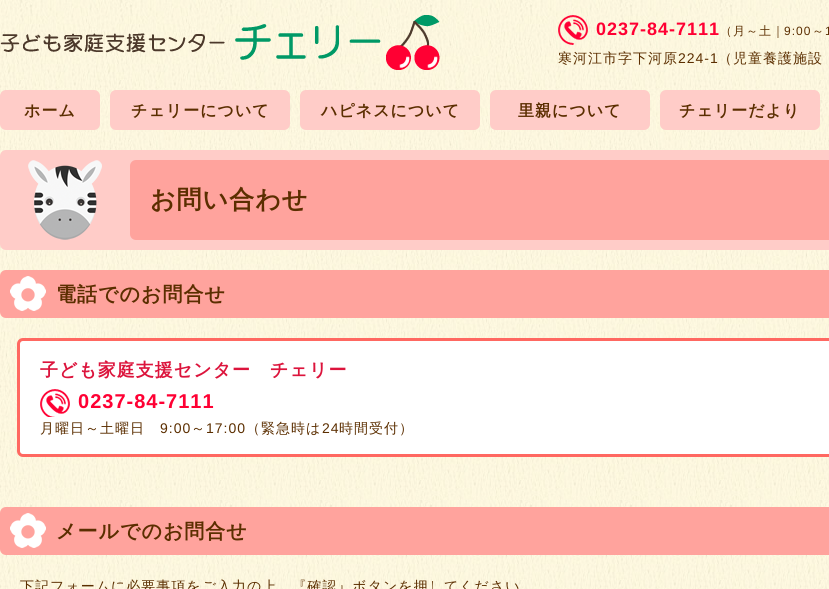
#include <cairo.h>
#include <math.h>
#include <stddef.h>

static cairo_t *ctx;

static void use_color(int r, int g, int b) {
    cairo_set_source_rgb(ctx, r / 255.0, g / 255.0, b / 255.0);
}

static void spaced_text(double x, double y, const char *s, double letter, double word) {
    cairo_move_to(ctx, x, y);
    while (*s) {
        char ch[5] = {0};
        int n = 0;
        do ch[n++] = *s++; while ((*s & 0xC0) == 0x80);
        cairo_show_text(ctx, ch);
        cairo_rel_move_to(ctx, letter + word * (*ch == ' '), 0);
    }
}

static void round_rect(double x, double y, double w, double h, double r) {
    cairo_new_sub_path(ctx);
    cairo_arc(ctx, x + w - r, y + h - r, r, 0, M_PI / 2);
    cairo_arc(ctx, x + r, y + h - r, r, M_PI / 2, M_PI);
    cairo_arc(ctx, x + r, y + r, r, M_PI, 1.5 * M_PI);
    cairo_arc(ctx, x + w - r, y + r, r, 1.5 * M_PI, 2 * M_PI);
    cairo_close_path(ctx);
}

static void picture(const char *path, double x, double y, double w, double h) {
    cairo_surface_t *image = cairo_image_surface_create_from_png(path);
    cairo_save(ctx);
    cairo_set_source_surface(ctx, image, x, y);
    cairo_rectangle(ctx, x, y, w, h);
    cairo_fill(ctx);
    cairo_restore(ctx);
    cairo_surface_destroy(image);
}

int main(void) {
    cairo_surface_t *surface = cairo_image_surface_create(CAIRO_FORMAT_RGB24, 829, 589);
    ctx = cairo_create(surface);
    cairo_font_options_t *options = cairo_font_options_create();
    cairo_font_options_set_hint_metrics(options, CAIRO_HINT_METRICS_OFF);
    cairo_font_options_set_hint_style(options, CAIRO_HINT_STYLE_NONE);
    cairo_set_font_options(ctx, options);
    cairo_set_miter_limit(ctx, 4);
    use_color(255, 255, 255);
    cairo_paint(ctx);
    picture("img1.png", 0, 0, 829, 589);
    picture("img2.png", 0, 15, 440, 55);
    picture("img3.png", 558, 15, 30, 30);
    cairo_select_font_face(ctx, "Liberation Sans", CAIRO_FONT_SLANT_NORMAL, CAIRO_FONT_WEIGHT_BOLD);
    cairo_set_font_size(ctx, 18);
    use_color(255, 0, 51);
    spaced_text(596, 35, "0237-84-7111", 1, 0);
    cairo_select_font_face(ctx, "WenQuanYi Zen Hei Medium", CAIRO_FONT_SLANT_NORMAL, CAIRO_FONT_WEIGHT_NORMAL);
    cairo_set_font_size(ctx, 12);
    use_color(91, 46, 0);
    spaced_text(720, 35, "（月～土｜", 1, 0);
    cairo_select_font_face(ctx, "Liberation Sans", CAIRO_FONT_SLANT_NORMAL, CAIRO_FONT_WEIGHT_NORMAL);
    spaced_text(784, 35, "9:00", 1, 0);
    cairo_select_font_face(ctx, "WenQuanYi Zen Hei Medium", CAIRO_FONT_SLANT_NORMAL, CAIRO_FONT_WEIGHT_NORMAL);
    spaced_text(812, 35, "～", 1, 0);
    cairo_select_font_face(ctx, "Liberation Sans", CAIRO_FONT_SLANT_NORMAL, CAIRO_FONT_WEIGHT_NORMAL);
    spaced_text(825, 35, "1", 1, 0);
    cairo_select_font_face(ctx, "WenQuanYi Zen Hei Medium", CAIRO_FONT_SLANT_NORMAL, CAIRO_FONT_WEIGHT_NORMAL);
    cairo_set_font_size(ctx, 14);
    spaced_text(558, 63, "寒河江市字下河原", 1, 0);
    cairo_select_font_face(ctx, "Liberation Sans", CAIRO_FONT_SLANT_NORMAL, CAIRO_FONT_WEIGHT_NORMAL);
    spaced_text(678, 63, "224-1", 1, 0);
    cairo_select_font_face(ctx, "WenQuanYi Zen Hei Medium", CAIRO_FONT_SLANT_NORMAL, CAIRO_FONT_WEIGHT_NORMAL);
    spaced_text(718, 63, "（児童養護施設", 1, 0);
    use_color(255, 204, 200);
    round_rect(0, 90, 100, 40, 6);
    cairo_fill(ctx);
    cairo_select_font_face(ctx, "WenQuanYi Zen Hei", CAIRO_FONT_SLANT_NORMAL, CAIRO_FONT_WEIGHT_BOLD);
    cairo_set_font_size(ctx, 16);
    use_color(91, 46, 0);
    spaced_text(24, 116, "ホーム", 1, 0);
    use_color(255, 204, 200);
    round_rect(110, 90, 180, 40, 6);
    cairo_fill(ctx);
    use_color(91, 46, 0);
    spaced_text(131, 116, "チェリーについて", 1, 0);
    use_color(255, 204, 200);
    round_rect(300, 90, 180, 40, 6);
    cairo_fill(ctx);
    use_color(91, 46, 0);
    spaced_text(321, 116, "ハピネスについて", 1, 0);
    use_color(255, 204, 200);
    round_rect(490, 90, 160, 40, 6);
    cairo_fill(ctx);
    use_color(91, 46, 0);
    spaced_text(518, 116, "里親について", 1, 0);
    use_color(255, 204, 200);
    round_rect(660, 90, 160, 40, 6);
    cairo_fill(ctx);
    use_color(91, 46, 0);
    spaced_text(679, 116, "チェリーだより", 1, 0);
    use_color(255, 204, 200);
    round_rect(0, 150, 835, 100, 6);
    cairo_fill(ctx);
    picture("img4.png", 28, 160, 74, 80);
    use_color(255, 163, 157);
    round_rect(130, 160, 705, 80, 6);
    cairo_fill(ctx);
    cairo_set_font_size(ctx, 25);
    use_color(91, 46, 0);
    spaced_text(150, 208, "お問い合わせ", 1, 0);
    use_color(255, 163, 157);
    round_rect(0, 270, 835, 48, 6);
    cairo_fill(ctx);
    picture("img5.png", 10, 276, 36, 35);
    cairo_set_font_size(ctx, 20);
    use_color(91, 46, 0);
    spaced_text(56, 301, "電話でのお問合せ", 1, 0);
    use_color(255, 255, 255);
    round_rect(18.5, 339.5, 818, 116, 4.5);
    cairo_fill_preserve(ctx);
    use_color(255, 104, 97);
    cairo_set_line_width(ctx, 3);
    cairo_stroke(ctx);
    cairo_set_font_size(ctx, 18);
    use_color(220, 20, 60);
    spaced_text(40, 376, "子ども家庭支援センター　チェリー", 1, 0);
    picture("img6.png", 40, 389, 30, 28);
    cairo_select_font_face(ctx, "Liberation Sans", CAIRO_FONT_SLANT_NORMAL, CAIRO_FONT_WEIGHT_BOLD);
    cairo_set_font_size(ctx, 20);
    use_color(255, 0, 51);
    spaced_text(78, 408, "0237-84-7111", 1, 0);
    cairo_select_font_face(ctx, "WenQuanYi Zen Hei Medium", CAIRO_FONT_SLANT_NORMAL, CAIRO_FONT_WEIGHT_NORMAL);
    cairo_set_font_size(ctx, 14);
    use_color(91, 46, 0);
    spaced_text(40, 433, "月曜日～土曜日", 1, 0);
    cairo_select_font_face(ctx, "Liberation Sans", CAIRO_FONT_SLANT_NORMAL, CAIRO_FONT_WEIGHT_NORMAL);
    spaced_text(160, 433, "9:00", 1, 0);
    cairo_select_font_face(ctx, "WenQuanYi Zen Hei Medium", CAIRO_FONT_SLANT_NORMAL, CAIRO_FONT_WEIGHT_NORMAL);
    spaced_text(191, 433, "～", 1, 0);
    cairo_select_font_face(ctx, "Liberation Sans", CAIRO_FONT_SLANT_NORMAL, CAIRO_FONT_WEIGHT_NORMAL);
    spaced_text(206, 433, "17:00", 1, 0);
    cairo_select_font_face(ctx, "WenQuanYi Zen Hei Medium", CAIRO_FONT_SLANT_NORMAL, CAIRO_FONT_WEIGHT_NORMAL);
    spaced_text(246, 433, "（緊急時は", 1, 0);
    cairo_select_font_face(ctx, "Liberation Sans", CAIRO_FONT_SLANT_NORMAL, CAIRO_FONT_WEIGHT_NORMAL);
    spaced_text(322, 433, "24", 1, 0);
    cairo_select_font_face(ctx, "WenQuanYi Zen Hei Medium", CAIRO_FONT_SLANT_NORMAL, CAIRO_FONT_WEIGHT_NORMAL);
    spaced_text(339, 433, "時間受付）", 1, 0);
    use_color(255, 163, 157);
    round_rect(0, 507, 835, 48, 6);
    cairo_fill(ctx);
    picture("img5.png", 10, 513, 36, 35);
    cairo_select_font_face(ctx, "WenQuanYi Zen Hei", CAIRO_FONT_SLANT_NORMAL, CAIRO_FONT_WEIGHT_BOLD);
    cairo_set_font_size(ctx, 20);
    use_color(91, 46, 0);
    spaced_text(56, 538, "メールでのお問合せ", 1, 0);
    cairo_select_font_face(ctx, "WenQuanYi Zen Hei Medium", CAIRO_FONT_SLANT_NORMAL, CAIRO_FONT_WEIGHT_NORMAL);
    cairo_set_font_size(ctx, 14);
    spaced_text(20, 591, "下記フォームに必要事項をご入力の上、『確認』ボタンを押してください", 1, 0);
    cairo_surface_write_to_png(surface, "result.png");
    cairo_font_options_destroy(options);
    cairo_destroy(ctx);
    cairo_surface_destroy(surface);
    return 0;
}
